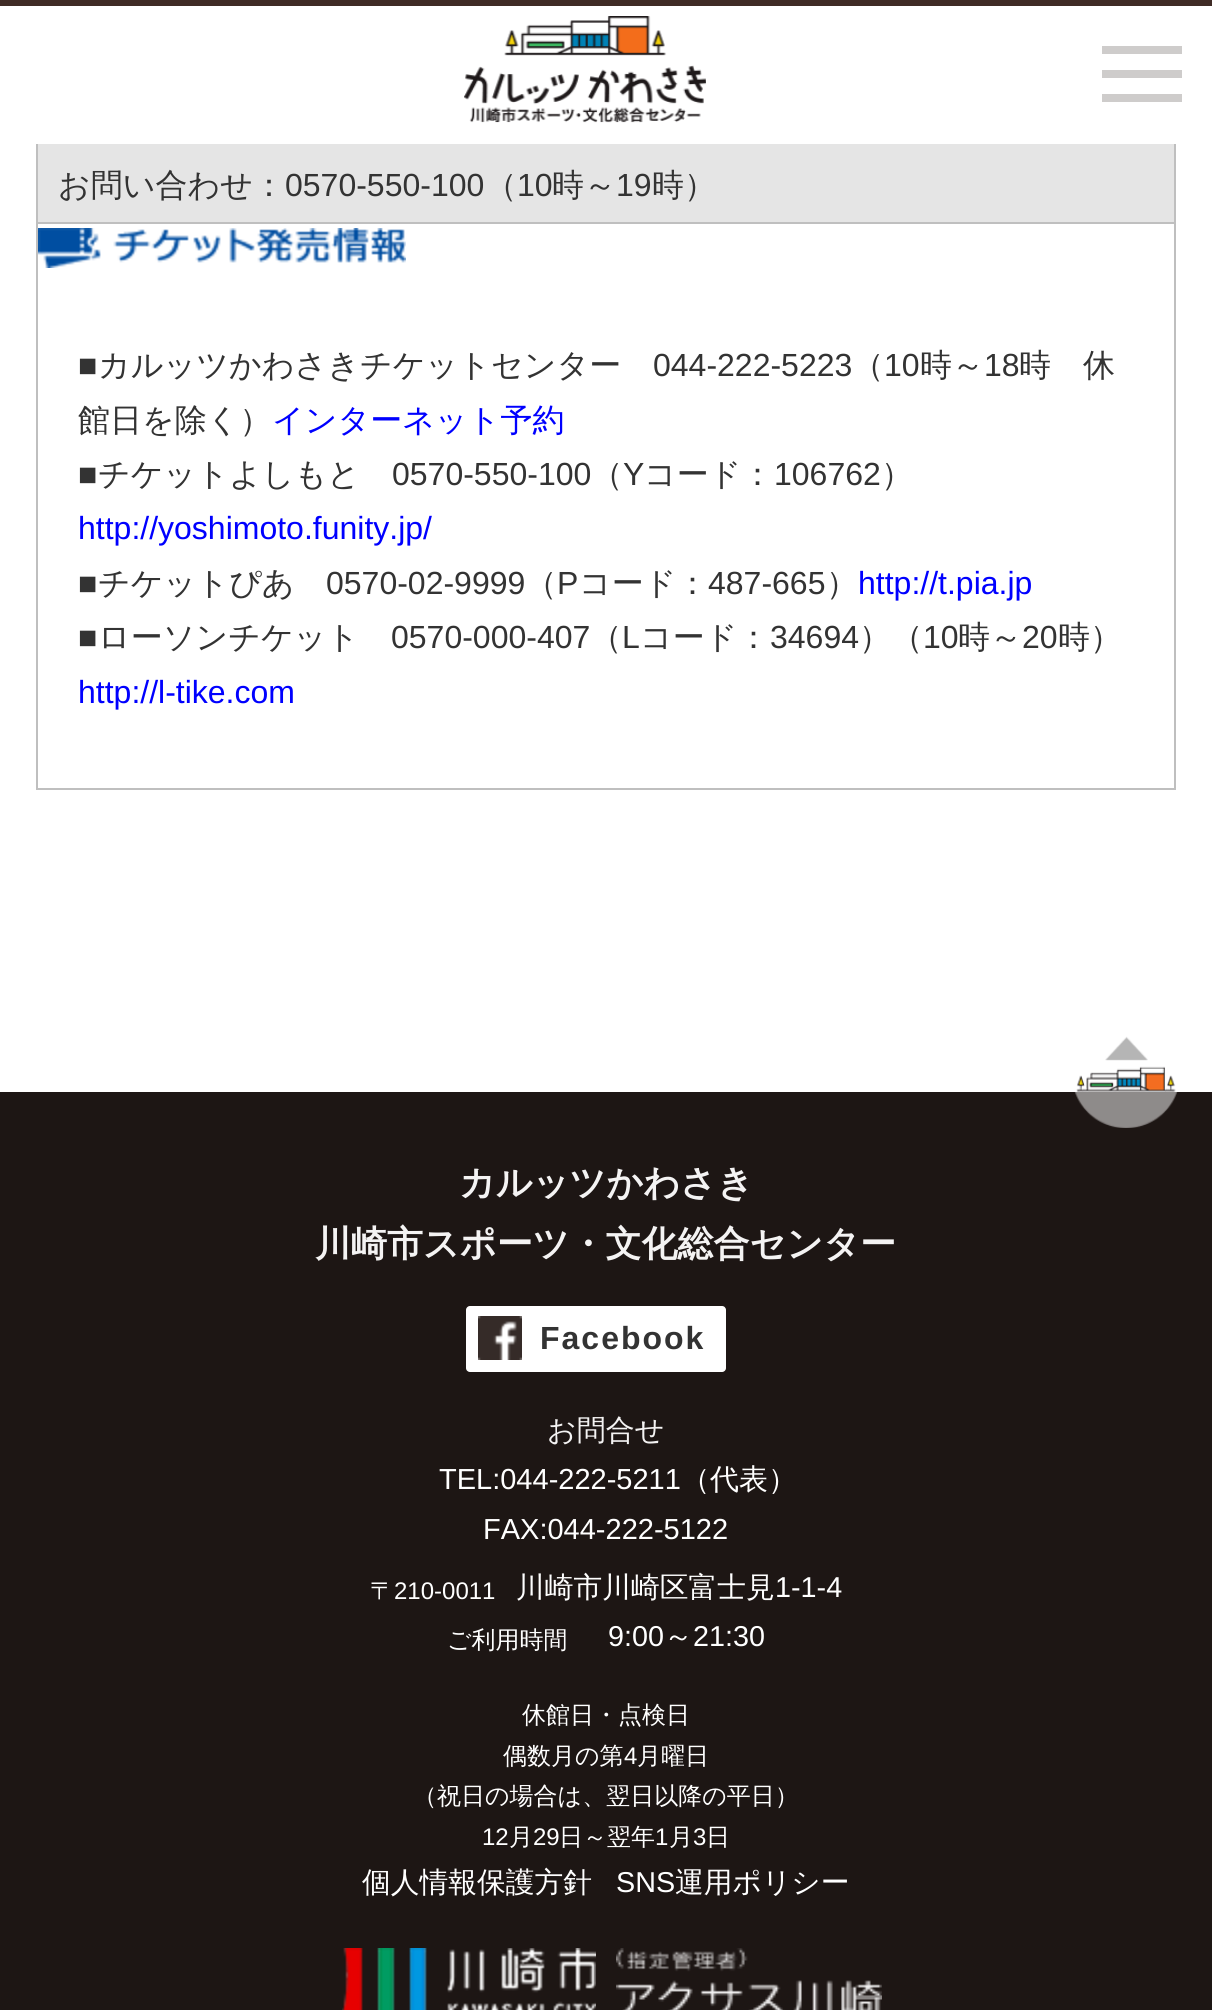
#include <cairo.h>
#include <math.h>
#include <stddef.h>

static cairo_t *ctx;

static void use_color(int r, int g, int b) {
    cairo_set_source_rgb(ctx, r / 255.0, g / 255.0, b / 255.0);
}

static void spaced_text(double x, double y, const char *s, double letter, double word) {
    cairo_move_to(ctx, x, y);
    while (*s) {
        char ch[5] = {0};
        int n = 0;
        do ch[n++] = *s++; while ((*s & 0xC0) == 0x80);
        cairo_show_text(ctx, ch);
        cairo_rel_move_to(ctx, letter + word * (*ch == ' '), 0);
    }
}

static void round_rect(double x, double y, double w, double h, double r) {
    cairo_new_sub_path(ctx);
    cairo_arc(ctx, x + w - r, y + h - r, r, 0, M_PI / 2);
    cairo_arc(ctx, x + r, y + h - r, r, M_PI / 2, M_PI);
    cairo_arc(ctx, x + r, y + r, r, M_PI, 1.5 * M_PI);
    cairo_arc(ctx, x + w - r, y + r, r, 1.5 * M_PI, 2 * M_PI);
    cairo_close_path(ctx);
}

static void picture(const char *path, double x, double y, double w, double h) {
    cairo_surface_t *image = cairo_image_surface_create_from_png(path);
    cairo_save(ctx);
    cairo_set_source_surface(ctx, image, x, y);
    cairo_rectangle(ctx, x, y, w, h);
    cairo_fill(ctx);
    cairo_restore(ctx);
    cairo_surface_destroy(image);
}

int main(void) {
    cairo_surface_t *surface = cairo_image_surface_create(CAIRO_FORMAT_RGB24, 1212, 2010);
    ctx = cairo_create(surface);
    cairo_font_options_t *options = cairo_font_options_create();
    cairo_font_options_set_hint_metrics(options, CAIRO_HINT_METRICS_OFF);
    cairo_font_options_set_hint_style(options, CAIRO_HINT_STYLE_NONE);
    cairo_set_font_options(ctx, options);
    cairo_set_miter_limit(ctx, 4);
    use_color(255, 255, 255);
    cairo_paint(ctx);
    cairo_rectangle(ctx, 37, 37, 1138, 752);
    use_color(191, 191, 191);
    cairo_stroke(ctx);
    use_color(255, 255, 255);
    cairo_rectangle(ctx, 36, 36, 1140, 108);
    cairo_fill(ctx);
    use_color(63, 43, 38);
    cairo_rectangle(ctx, 0, 0, 1212, 6);
    cairo_fill(ctx);
    picture("img1.png", 464, 16, 242, 107);
    use_color(206, 204, 203);
    cairo_rectangle(ctx, 1102, 46, 80, 8);
    cairo_fill(ctx);
    cairo_rectangle(ctx, 1102, 70, 80, 8);
    cairo_fill(ctx);
    cairo_rectangle(ctx, 1102, 94, 80, 8);
    cairo_fill(ctx);
    use_color(229, 229, 229);
    cairo_rectangle(ctx, 38, 144, 1136, 78);
    cairo_fill(ctx);
    use_color(191, 191, 191);
    cairo_rectangle(ctx, 38, 222, 1136, 2);
    cairo_fill(ctx);
    cairo_select_font_face(ctx, "WenQuanYi Zen Hei Medium", CAIRO_FONT_SLANT_NORMAL, CAIRO_FONT_WEIGHT_NORMAL);
    cairo_set_font_size(ctx, 32);
    use_color(51, 51, 51);
    cairo_move_to(ctx, 58, 196);
    cairo_show_text(ctx, "お問い合わせ：");
    cairo_select_font_face(ctx, "Liberation Sans", CAIRO_FONT_SLANT_NORMAL, CAIRO_FONT_WEIGHT_NORMAL);
    cairo_move_to(ctx, 285, 196);
    cairo_show_text(ctx, "0570-550-100");
    cairo_select_font_face(ctx, "WenQuanYi Zen Hei Medium", CAIRO_FONT_SLANT_NORMAL, CAIRO_FONT_WEIGHT_NORMAL);
    cairo_move_to(ctx, 485, 196);
    cairo_show_text(ctx, "（");
    cairo_select_font_face(ctx, "Liberation Sans", CAIRO_FONT_SLANT_NORMAL, CAIRO_FONT_WEIGHT_NORMAL);
    cairo_move_to(ctx, 517, 196);
    cairo_show_text(ctx, "10");
    cairo_select_font_face(ctx, "WenQuanYi Zen Hei Medium", CAIRO_FONT_SLANT_NORMAL, CAIRO_FONT_WEIGHT_NORMAL);
    cairo_move_to(ctx, 552, 196);
    cairo_show_text(ctx, "時～");
    cairo_select_font_face(ctx, "Liberation Sans", CAIRO_FONT_SLANT_NORMAL, CAIRO_FONT_WEIGHT_NORMAL);
    cairo_move_to(ctx, 616, 196);
    cairo_show_text(ctx, "19");
    cairo_select_font_face(ctx, "WenQuanYi Zen Hei Medium", CAIRO_FONT_SLANT_NORMAL, CAIRO_FONT_WEIGHT_NORMAL);
    cairo_move_to(ctx, 652, 196);
    cairo_show_text(ctx, "時）");
    picture("img2.png", 38, 228, 368, 40);
    cairo_select_font_face(ctx, "Liberation Sans", CAIRO_FONT_SLANT_NORMAL, CAIRO_FONT_WEIGHT_NORMAL);
    cairo_move_to(ctx, 78, 376);
    cairo_show_text(ctx, "■");
    cairo_select_font_face(ctx, "WenQuanYi Zen Hei Medium", CAIRO_FONT_SLANT_NORMAL, CAIRO_FONT_WEIGHT_NORMAL);
    cairo_move_to(ctx, 98, 376);
    cairo_show_text(ctx, "カルッツかわさきチケットセンター");
    cairo_select_font_face(ctx, "Liberation Sans", CAIRO_FONT_SLANT_NORMAL, CAIRO_FONT_WEIGHT_NORMAL);
    cairo_move_to(ctx, 653, 376);
    cairo_show_text(ctx, "044-222-5223");
    cairo_select_font_face(ctx, "WenQuanYi Zen Hei Medium", CAIRO_FONT_SLANT_NORMAL, CAIRO_FONT_WEIGHT_NORMAL);
    cairo_move_to(ctx, 852, 376);
    cairo_show_text(ctx, "（");
    cairo_select_font_face(ctx, "Liberation Sans", CAIRO_FONT_SLANT_NORMAL, CAIRO_FONT_WEIGHT_NORMAL);
    cairo_move_to(ctx, 884, 376);
    cairo_show_text(ctx, "10");
    cairo_select_font_face(ctx, "WenQuanYi Zen Hei Medium", CAIRO_FONT_SLANT_NORMAL, CAIRO_FONT_WEIGHT_NORMAL);
    cairo_move_to(ctx, 920, 376);
    cairo_show_text(ctx, "時～");
    cairo_select_font_face(ctx, "Liberation Sans", CAIRO_FONT_SLANT_NORMAL, CAIRO_FONT_WEIGHT_NORMAL);
    cairo_move_to(ctx, 984, 376);
    cairo_show_text(ctx, "18");
    cairo_select_font_face(ctx, "WenQuanYi Zen Hei Medium", CAIRO_FONT_SLANT_NORMAL, CAIRO_FONT_WEIGHT_NORMAL);
    cairo_move_to(ctx, 1019, 376);
    cairo_show_text(ctx, "時　休");
    cairo_move_to(ctx, 78, 431);
    cairo_show_text(ctx, "館日を除く）");
    use_color(0, 0, 255);
    cairo_move_to(ctx, 272, 431);
    cairo_show_text(ctx, "インターネット予約");
    cairo_select_font_face(ctx, "Liberation Sans", CAIRO_FONT_SLANT_NORMAL, CAIRO_FONT_WEIGHT_NORMAL);
    use_color(51, 51, 51);
    cairo_move_to(ctx, 78, 485);
    cairo_show_text(ctx, "■");
    cairo_select_font_face(ctx, "WenQuanYi Zen Hei Medium", CAIRO_FONT_SLANT_NORMAL, CAIRO_FONT_WEIGHT_NORMAL);
    cairo_move_to(ctx, 98, 485);
    cairo_show_text(ctx, "チケットよしもと");
    cairo_select_font_face(ctx, "Liberation Sans", CAIRO_FONT_SLANT_NORMAL, CAIRO_FONT_WEIGHT_NORMAL);
    cairo_move_to(ctx, 392, 485);
    cairo_show_text(ctx, "0570-550-100");
    cairo_select_font_face(ctx, "WenQuanYi Zen Hei Medium", CAIRO_FONT_SLANT_NORMAL, CAIRO_FONT_WEIGHT_NORMAL);
    cairo_move_to(ctx, 591, 485);
    cairo_show_text(ctx, "（");
    cairo_select_font_face(ctx, "Liberation Sans", CAIRO_FONT_SLANT_NORMAL, CAIRO_FONT_WEIGHT_NORMAL);
    cairo_move_to(ctx, 623, 485);
    cairo_show_text(ctx, "Y");
    cairo_select_font_face(ctx, "WenQuanYi Zen Hei Medium", CAIRO_FONT_SLANT_NORMAL, CAIRO_FONT_WEIGHT_NORMAL);
    cairo_move_to(ctx, 644, 485);
    cairo_show_text(ctx, "コード：");
    cairo_select_font_face(ctx, "Liberation Sans", CAIRO_FONT_SLANT_NORMAL, CAIRO_FONT_WEIGHT_NORMAL);
    cairo_move_to(ctx, 774, 485);
    cairo_show_text(ctx, "106762");
    cairo_select_font_face(ctx, "WenQuanYi Zen Hei Medium", CAIRO_FONT_SLANT_NORMAL, CAIRO_FONT_WEIGHT_NORMAL);
    cairo_move_to(ctx, 881, 485);
    cairo_show_text(ctx, "）");
    cairo_select_font_face(ctx, "Liberation Sans", CAIRO_FONT_SLANT_NORMAL, CAIRO_FONT_WEIGHT_NORMAL);
    use_color(0, 0, 255);
    cairo_move_to(ctx, 78, 539);
    cairo_show_text(ctx, "http://yoshimoto.funity.jp/");
    use_color(51, 51, 51);
    cairo_move_to(ctx, 78, 594);
    cairo_show_text(ctx, "■");
    cairo_select_font_face(ctx, "WenQuanYi Zen Hei Medium", CAIRO_FONT_SLANT_NORMAL, CAIRO_FONT_WEIGHT_NORMAL);
    cairo_move_to(ctx, 98, 594);
    cairo_show_text(ctx, "チケットぴあ");
    cairo_select_font_face(ctx, "Liberation Sans", CAIRO_FONT_SLANT_NORMAL, CAIRO_FONT_WEIGHT_NORMAL);
    cairo_move_to(ctx, 326, 594);
    cairo_show_text(ctx, "0570-02-9999");
    cairo_select_font_face(ctx, "WenQuanYi Zen Hei Medium", CAIRO_FONT_SLANT_NORMAL, CAIRO_FONT_WEIGHT_NORMAL);
    cairo_move_to(ctx, 525, 594);
    cairo_show_text(ctx, "（");
    cairo_select_font_face(ctx, "Liberation Sans", CAIRO_FONT_SLANT_NORMAL, CAIRO_FONT_WEIGHT_NORMAL);
    cairo_move_to(ctx, 557, 594);
    cairo_show_text(ctx, "P");
    cairo_select_font_face(ctx, "WenQuanYi Zen Hei Medium", CAIRO_FONT_SLANT_NORMAL, CAIRO_FONT_WEIGHT_NORMAL);
    cairo_move_to(ctx, 579, 594);
    cairo_show_text(ctx, "コード：");
    cairo_select_font_face(ctx, "Liberation Sans", CAIRO_FONT_SLANT_NORMAL, CAIRO_FONT_WEIGHT_NORMAL);
    cairo_move_to(ctx, 708, 594);
    cairo_show_text(ctx, "487-665");
    cairo_select_font_face(ctx, "WenQuanYi Zen Hei Medium", CAIRO_FONT_SLANT_NORMAL, CAIRO_FONT_WEIGHT_NORMAL);
    cairo_move_to(ctx, 826, 594);
    cairo_show_text(ctx, "）");
    cairo_select_font_face(ctx, "Liberation Sans", CAIRO_FONT_SLANT_NORMAL, CAIRO_FONT_WEIGHT_NORMAL);
    use_color(0, 0, 255);
    cairo_move_to(ctx, 858, 594);
    cairo_show_text(ctx, "http://t.pia.jp");
    use_color(51, 51, 51);
    cairo_move_to(ctx, 78, 648);
    cairo_show_text(ctx, "■");
    cairo_select_font_face(ctx, "WenQuanYi Zen Hei Medium", CAIRO_FONT_SLANT_NORMAL, CAIRO_FONT_WEIGHT_NORMAL);
    cairo_move_to(ctx, 98, 648);
    cairo_show_text(ctx, "ローソンチケット");
    cairo_select_font_face(ctx, "Liberation Sans", CAIRO_FONT_SLANT_NORMAL, CAIRO_FONT_WEIGHT_NORMAL);
    cairo_move_to(ctx, 391, 648);
    cairo_show_text(ctx, "0570-000-407");
    cairo_select_font_face(ctx, "WenQuanYi Zen Hei Medium", CAIRO_FONT_SLANT_NORMAL, CAIRO_FONT_WEIGHT_NORMAL);
    cairo_move_to(ctx, 590, 648);
    cairo_show_text(ctx, "（");
    cairo_select_font_face(ctx, "Liberation Sans", CAIRO_FONT_SLANT_NORMAL, CAIRO_FONT_WEIGHT_NORMAL);
    cairo_move_to(ctx, 622, 648);
    cairo_show_text(ctx, "L");
    cairo_select_font_face(ctx, "WenQuanYi Zen Hei Medium", CAIRO_FONT_SLANT_NORMAL, CAIRO_FONT_WEIGHT_NORMAL);
    cairo_move_to(ctx, 640, 648);
    cairo_show_text(ctx, "コード：");
    cairo_select_font_face(ctx, "Liberation Sans", CAIRO_FONT_SLANT_NORMAL, CAIRO_FONT_WEIGHT_NORMAL);
    cairo_move_to(ctx, 770, 648);
    cairo_show_text(ctx, "34694");
    cairo_select_font_face(ctx, "WenQuanYi Zen Hei Medium", CAIRO_FONT_SLANT_NORMAL, CAIRO_FONT_WEIGHT_NORMAL);
    cairo_move_to(ctx, 859, 648);
    cairo_show_text(ctx, "）（");
    cairo_select_font_face(ctx, "Liberation Sans", CAIRO_FONT_SLANT_NORMAL, CAIRO_FONT_WEIGHT_NORMAL);
    cairo_move_to(ctx, 923, 648);
    cairo_show_text(ctx, "10");
    cairo_select_font_face(ctx, "WenQuanYi Zen Hei Medium", CAIRO_FONT_SLANT_NORMAL, CAIRO_FONT_WEIGHT_NORMAL);
    cairo_move_to(ctx, 958, 648);
    cairo_show_text(ctx, "時～");
    cairo_select_font_face(ctx, "Liberation Sans", CAIRO_FONT_SLANT_NORMAL, CAIRO_FONT_WEIGHT_NORMAL);
    cairo_move_to(ctx, 1022, 648);
    cairo_show_text(ctx, "20");
    cairo_select_font_face(ctx, "WenQuanYi Zen Hei Medium", CAIRO_FONT_SLANT_NORMAL, CAIRO_FONT_WEIGHT_NORMAL);
    cairo_move_to(ctx, 1058, 648);
    cairo_show_text(ctx, "時）");
    cairo_select_font_face(ctx, "Liberation Sans", CAIRO_FONT_SLANT_NORMAL, CAIRO_FONT_WEIGHT_NORMAL);
    use_color(0, 0, 255);
    cairo_move_to(ctx, 78, 703);
    cairo_show_text(ctx, "http://l-tike.com");
    use_color(29, 22, 20);
    cairo_rectangle(ctx, 0, 1092, 1212, 918);
    cairo_fill(ctx);
    picture("img3.png", 1074, 1036, 104, 92);
    cairo_select_font_face(ctx, "WenQuanYi Zen Hei", CAIRO_FONT_SLANT_NORMAL, CAIRO_FONT_WEIGHT_BOLD);
    cairo_set_font_size(ctx, 36);
    use_color(244, 243, 243);
    cairo_move_to(ctx, 459, 1195);
    cairo_show_text(ctx, "カルッツかわさき");
    cairo_move_to(ctx, 315, 1256);
    cairo_show_text(ctx, "川崎市スポーツ・文化総合センター");
    use_color(255, 255, 255);
    round_rect(466, 1306, 260, 66, 4);
    cairo_fill(ctx);
    picture("img4.png", 478, 1316, 44, 44);
    cairo_select_font_face(ctx, "Liberation Sans", CAIRO_FONT_SLANT_NORMAL, CAIRO_FONT_WEIGHT_BOLD);
    cairo_set_font_size(ctx, 32);
    use_color(51, 51, 51);
    spaced_text(540, 1349, "Facebook", 2, 0);
    cairo_select_font_face(ctx, "WenQuanYi Zen Hei Medium", CAIRO_FONT_SLANT_NORMAL, CAIRO_FONT_WEIGHT_NORMAL);
    cairo_set_font_size(ctx, 29);
    use_color(244, 243, 243);
    cairo_move_to(ctx, 547, 1440);
    cairo_show_text(ctx, "お問合せ");
    cairo_select_font_face(ctx, "Liberation Sans", CAIRO_FONT_SLANT_NORMAL, CAIRO_FONT_WEIGHT_NORMAL);
    use_color(255, 255, 255);
    cairo_move_to(ctx, 439, 1489);
    cairo_show_text(ctx, "TEL:044-222-5211");
    cairo_select_font_face(ctx, "WenQuanYi Zen Hei Medium", CAIRO_FONT_SLANT_NORMAL, CAIRO_FONT_WEIGHT_NORMAL);
    cairo_move_to(ctx, 681, 1489);
    cairo_show_text(ctx, "（代表）");
    cairo_select_font_face(ctx, "Liberation Sans", CAIRO_FONT_SLANT_NORMAL, CAIRO_FONT_WEIGHT_NORMAL);
    cairo_move_to(ctx, 483, 1539);
    cairo_show_text(ctx, "FAX:044-222-5122");
    cairo_select_font_face(ctx, "WenQuanYi Zen Hei Medium", CAIRO_FONT_SLANT_NORMAL, CAIRO_FONT_WEIGHT_NORMAL);
    cairo_set_font_size(ctx, 24);
    cairo_move_to(ctx, 370, 1599);
    cairo_show_text(ctx, "〒");
    cairo_select_font_face(ctx, "Liberation Sans", CAIRO_FONT_SLANT_NORMAL, CAIRO_FONT_WEIGHT_NORMAL);
    cairo_move_to(ctx, 394, 1599);
    cairo_show_text(ctx, "210-0011");
    cairo_select_font_face(ctx, "WenQuanYi Zen Hei Medium", CAIRO_FONT_SLANT_NORMAL, CAIRO_FONT_WEIGHT_NORMAL);
    cairo_set_font_size(ctx, 28.75);
    cairo_move_to(ctx, 516, 1597);
    cairo_show_text(ctx, "川崎市川崎区富士見");
    cairo_select_font_face(ctx, "Liberation Sans", CAIRO_FONT_SLANT_NORMAL, CAIRO_FONT_WEIGHT_NORMAL);
    cairo_move_to(ctx, 775, 1597);
    cairo_show_text(ctx, "1-1-4");
    cairo_select_font_face(ctx, "WenQuanYi Zen Hei Medium", CAIRO_FONT_SLANT_NORMAL, CAIRO_FONT_WEIGHT_NORMAL);
    cairo_set_font_size(ctx, 24);
    cairo_move_to(ctx, 447, 1648);
    cairo_show_text(ctx, "ご利用時間");
    cairo_select_font_face(ctx, "Liberation Sans", CAIRO_FONT_SLANT_NORMAL, CAIRO_FONT_WEIGHT_NORMAL);
    cairo_set_font_size(ctx, 28.75);
    cairo_move_to(ctx, 608, 1646);
    cairo_show_text(ctx, "9:00");
    cairo_select_font_face(ctx, "WenQuanYi Zen Hei Medium", CAIRO_FONT_SLANT_NORMAL, CAIRO_FONT_WEIGHT_NORMAL);
    cairo_move_to(ctx, 664, 1646);
    cairo_show_text(ctx, "～");
    cairo_select_font_face(ctx, "Liberation Sans", CAIRO_FONT_SLANT_NORMAL, CAIRO_FONT_WEIGHT_NORMAL);
    cairo_move_to(ctx, 693, 1646);
    cairo_show_text(ctx, "21:30");
    cairo_select_font_face(ctx, "WenQuanYi Zen Hei Medium", CAIRO_FONT_SLANT_NORMAL, CAIRO_FONT_WEIGHT_NORMAL);
    cairo_set_font_size(ctx, 24);
    cairo_move_to(ctx, 522, 1723);
    cairo_show_text(ctx, "休館日・点検日");
    cairo_move_to(ctx, 503, 1764);
    cairo_show_text(ctx, "偶数月の第");
    cairo_select_font_face(ctx, "Liberation Sans", CAIRO_FONT_SLANT_NORMAL, CAIRO_FONT_WEIGHT_NORMAL);
    cairo_move_to(ctx, 624, 1764);
    cairo_show_text(ctx, "4");
    cairo_select_font_face(ctx, "WenQuanYi Zen Hei Medium", CAIRO_FONT_SLANT_NORMAL, CAIRO_FONT_WEIGHT_NORMAL);
    cairo_move_to(ctx, 637, 1764);
    cairo_show_text(ctx, "月曜日");
    cairo_move_to(ctx, 413, 1804);
    cairo_show_text(ctx, "（祝日の場合は、翌日以降の平日）");
    cairo_select_font_face(ctx, "Liberation Sans", CAIRO_FONT_SLANT_NORMAL, CAIRO_FONT_WEIGHT_NORMAL);
    cairo_move_to(ctx, 482, 1845);
    cairo_show_text(ctx, "12");
    cairo_select_font_face(ctx, "WenQuanYi Zen Hei Medium", CAIRO_FONT_SLANT_NORMAL, CAIRO_FONT_WEIGHT_NORMAL);
    cairo_move_to(ctx, 509, 1845);
    cairo_show_text(ctx, "月");
    cairo_select_font_face(ctx, "Liberation Sans", CAIRO_FONT_SLANT_NORMAL, CAIRO_FONT_WEIGHT_NORMAL);
    cairo_move_to(ctx, 533, 1845);
    cairo_show_text(ctx, "29");
    cairo_select_font_face(ctx, "WenQuanYi Zen Hei Medium", CAIRO_FONT_SLANT_NORMAL, CAIRO_FONT_WEIGHT_NORMAL);
    cairo_move_to(ctx, 559, 1845);
    cairo_show_text(ctx, "日～翌年");
    cairo_select_font_face(ctx, "Liberation Sans", CAIRO_FONT_SLANT_NORMAL, CAIRO_FONT_WEIGHT_NORMAL);
    cairo_move_to(ctx, 655, 1845);
    cairo_show_text(ctx, "1");
    cairo_select_font_face(ctx, "WenQuanYi Zen Hei Medium", CAIRO_FONT_SLANT_NORMAL, CAIRO_FONT_WEIGHT_NORMAL);
    cairo_move_to(ctx, 669, 1845);
    cairo_show_text(ctx, "月");
    cairo_select_font_face(ctx, "Liberation Sans", CAIRO_FONT_SLANT_NORMAL, CAIRO_FONT_WEIGHT_NORMAL);
    cairo_move_to(ctx, 693, 1845);
    cairo_show_text(ctx, "3");
    cairo_select_font_face(ctx, "WenQuanYi Zen Hei Medium", CAIRO_FONT_SLANT_NORMAL, CAIRO_FONT_WEIGHT_NORMAL);
    cairo_move_to(ctx, 706, 1845);
    cairo_show_text(ctx, "日");
    cairo_set_font_size(ctx, 28.75);
    cairo_move_to(ctx, 362, 1892);
    cairo_show_text(ctx, "個人情報保護方針");
    cairo_select_font_face(ctx, "Liberation Sans", CAIRO_FONT_SLANT_NORMAL, CAIRO_FONT_WEIGHT_NORMAL);
    cairo_move_to(ctx, 616, 1892);
    cairo_show_text(ctx, "SNS");
    cairo_select_font_face(ctx, "WenQuanYi Zen Hei Medium", CAIRO_FONT_SLANT_NORMAL, CAIRO_FONT_WEIGHT_NORMAL);
    cairo_move_to(ctx, 675, 1892);
    cairo_show_text(ctx, "運用ポリシー");
    picture("img5.png", 342, 1948, 254, 62);
    picture("img6.png", 616, 1948, 266, 62);
    cairo_surface_write_to_png(surface, "result.png");
    cairo_font_options_destroy(options);
    cairo_destroy(ctx);
    cairo_surface_destroy(surface);
    return 0;
}
